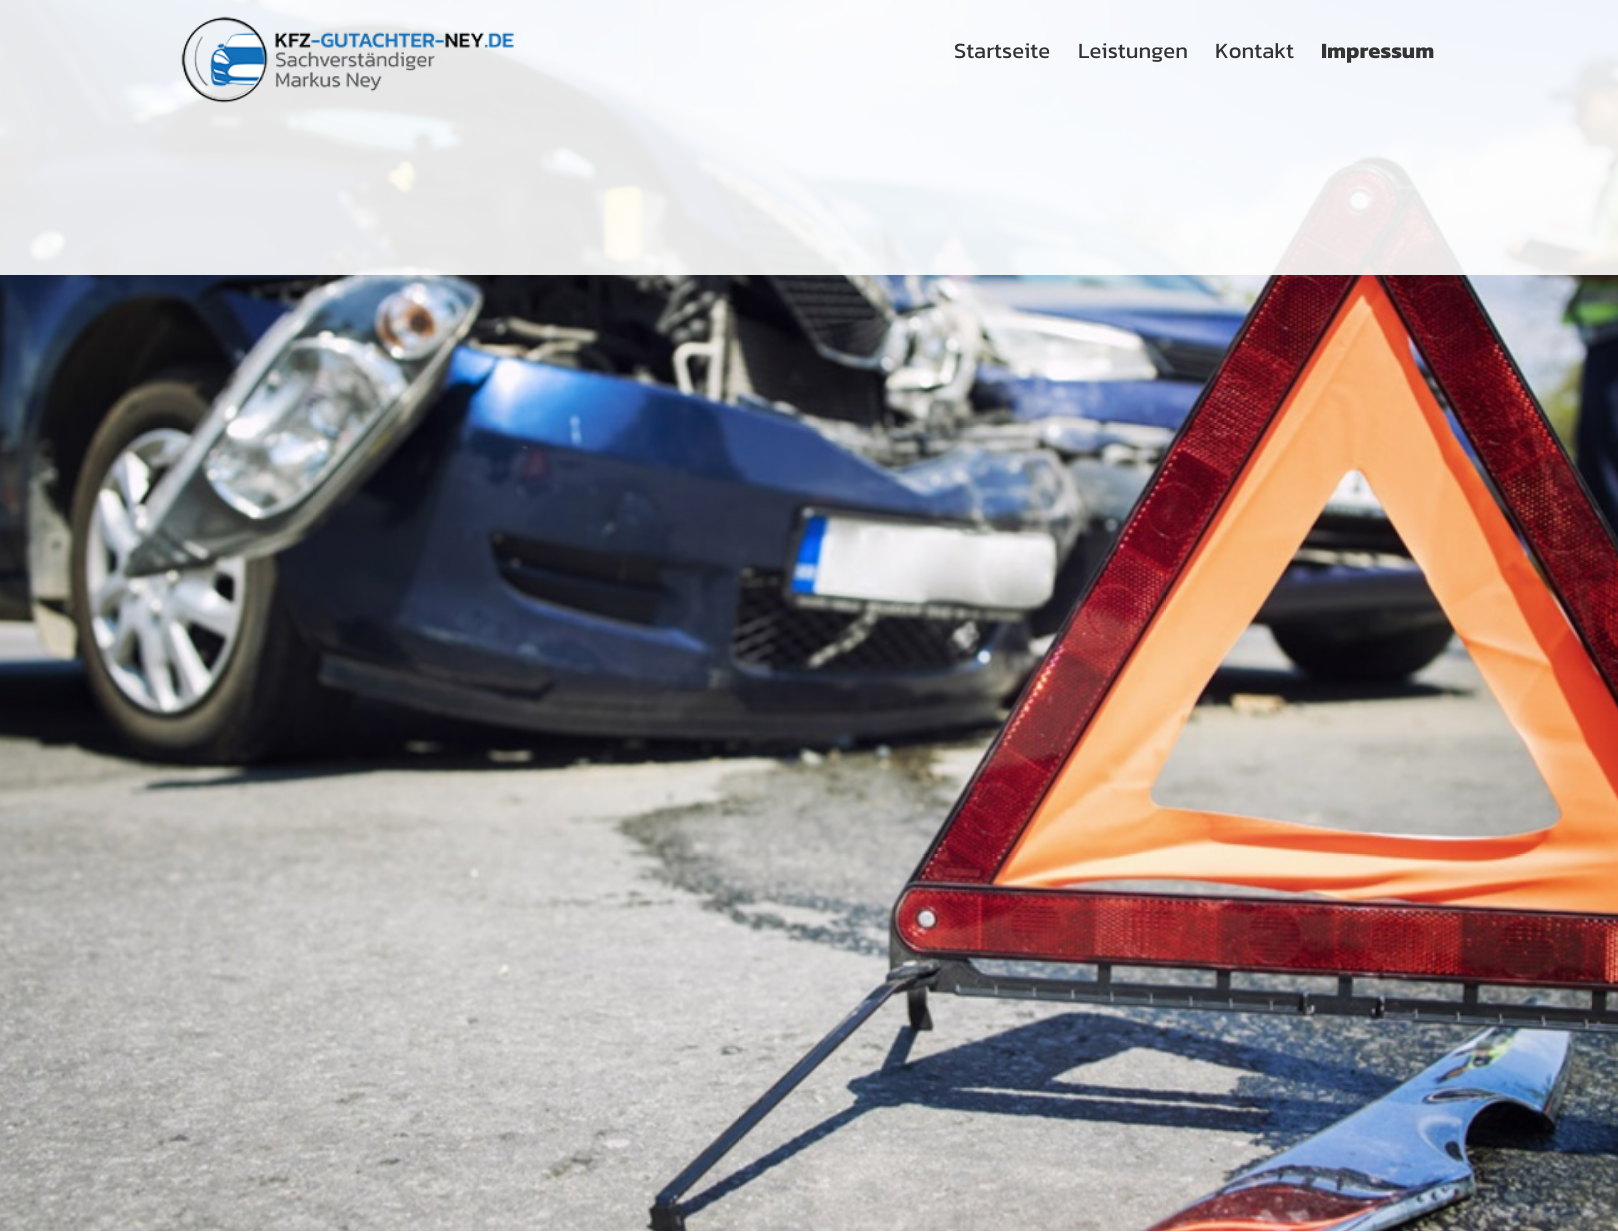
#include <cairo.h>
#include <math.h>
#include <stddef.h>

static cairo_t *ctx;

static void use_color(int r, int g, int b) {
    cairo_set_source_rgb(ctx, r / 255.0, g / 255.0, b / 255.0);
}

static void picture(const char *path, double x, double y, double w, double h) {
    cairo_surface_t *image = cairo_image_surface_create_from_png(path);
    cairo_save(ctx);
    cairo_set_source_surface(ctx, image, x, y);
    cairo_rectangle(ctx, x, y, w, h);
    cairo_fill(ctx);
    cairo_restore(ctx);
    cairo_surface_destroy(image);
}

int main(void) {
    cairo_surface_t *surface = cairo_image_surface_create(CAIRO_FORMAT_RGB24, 1618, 1232);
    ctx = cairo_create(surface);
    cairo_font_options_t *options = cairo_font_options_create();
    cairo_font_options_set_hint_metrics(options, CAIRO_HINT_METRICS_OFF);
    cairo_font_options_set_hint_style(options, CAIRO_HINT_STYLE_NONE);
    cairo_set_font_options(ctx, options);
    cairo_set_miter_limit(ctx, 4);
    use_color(255, 255, 255);
    cairo_paint(ctx);
    picture("img1.png", 0, 0, 1618, 1231);
    cairo_set_source_rgba(ctx, 1, 1, 1, 0.9);
    cairo_rectangle(ctx, 0, 0, 1618, 275);
    cairo_fill(ctx);
    picture("img2.png", 181, 16, 333, 87);
    cairo_select_font_face(ctx, "Kanit", CAIRO_FONT_SLANT_NORMAL, CAIRO_FONT_WEIGHT_NORMAL);
    cairo_set_font_size(ctx, 22);
    use_color(51, 51, 51);
    cairo_move_to(ctx, 954, 58);
    cairo_show_text(ctx, "Startseite");
    cairo_move_to(ctx, 1078, 58);
    cairo_show_text(ctx, "Leistungen");
    cairo_move_to(ctx, 1215, 58);
    cairo_show_text(ctx, "Kontakt");
    cairo_select_font_face(ctx, "Kanit", CAIRO_FONT_SLANT_NORMAL, CAIRO_FONT_WEIGHT_BOLD);
    cairo_move_to(ctx, 1321, 58);
    cairo_show_text(ctx, "Impressum");
    cairo_surface_write_to_png(surface, "result.png");
    cairo_font_options_destroy(options);
    cairo_destroy(ctx);
    cairo_surface_destroy(surface);
    return 0;
}
